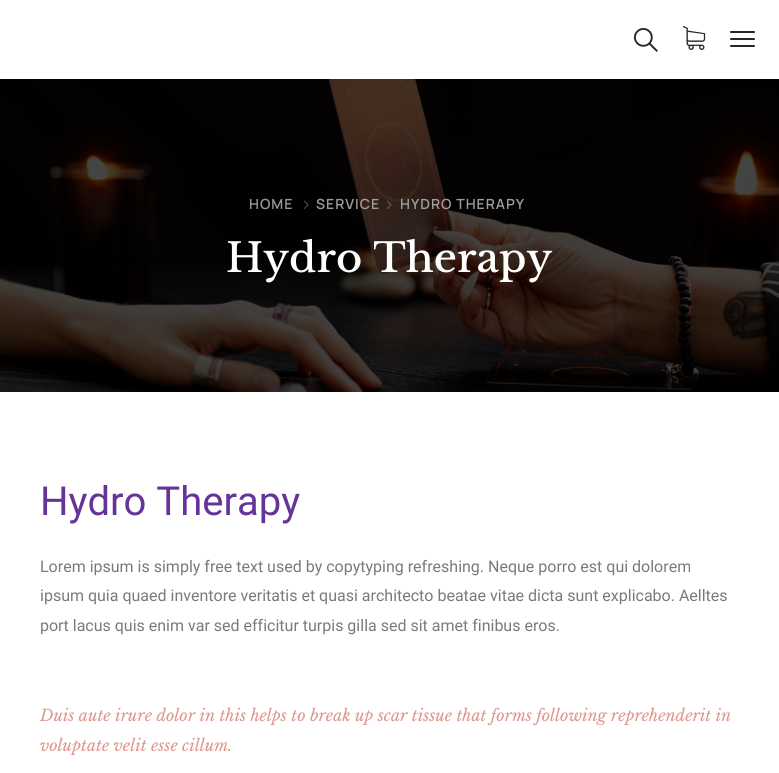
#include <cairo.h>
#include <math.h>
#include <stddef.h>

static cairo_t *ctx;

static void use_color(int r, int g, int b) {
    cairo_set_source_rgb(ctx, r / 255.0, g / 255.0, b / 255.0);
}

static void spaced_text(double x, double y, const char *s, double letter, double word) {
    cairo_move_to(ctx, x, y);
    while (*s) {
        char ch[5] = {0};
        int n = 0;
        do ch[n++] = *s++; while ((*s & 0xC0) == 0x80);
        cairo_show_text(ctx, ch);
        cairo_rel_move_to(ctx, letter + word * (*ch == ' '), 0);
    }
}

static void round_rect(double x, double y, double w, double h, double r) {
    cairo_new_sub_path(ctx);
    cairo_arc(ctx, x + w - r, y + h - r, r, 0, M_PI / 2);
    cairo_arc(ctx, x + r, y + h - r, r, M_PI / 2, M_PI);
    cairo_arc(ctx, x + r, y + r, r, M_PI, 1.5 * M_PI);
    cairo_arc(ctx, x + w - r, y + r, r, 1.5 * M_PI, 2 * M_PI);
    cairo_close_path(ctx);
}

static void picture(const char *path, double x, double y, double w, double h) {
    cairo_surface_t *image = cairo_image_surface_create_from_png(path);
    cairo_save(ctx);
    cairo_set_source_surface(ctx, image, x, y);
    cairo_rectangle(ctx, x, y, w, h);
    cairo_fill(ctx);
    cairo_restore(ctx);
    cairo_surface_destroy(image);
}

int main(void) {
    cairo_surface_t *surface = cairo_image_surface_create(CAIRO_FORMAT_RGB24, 779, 773);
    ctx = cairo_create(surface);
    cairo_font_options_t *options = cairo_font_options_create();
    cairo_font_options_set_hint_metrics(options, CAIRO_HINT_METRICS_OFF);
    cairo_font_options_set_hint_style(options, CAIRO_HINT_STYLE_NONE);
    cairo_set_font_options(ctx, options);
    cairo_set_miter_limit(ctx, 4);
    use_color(255, 255, 255);
    cairo_paint(ctx);
    picture("img1.png", 634, 28, 24, 24);
    picture("img2.png", 682, 26, 24, 24);
    use_color(39, 37, 42);
    round_rect(730, 31, 25, 2, 1);
    cairo_fill(ctx);
    round_rect(730, 38, 25, 2, 1);
    cairo_fill(ctx);
    round_rect(730, 45, 25, 2, 1);
    cairo_fill(ctx);
    picture("img3.png", 0, 79, 779, 313);
    cairo_select_font_face(ctx, "Manrope SemiBold", CAIRO_FONT_SLANT_NORMAL, CAIRO_FONT_WEIGHT_NORMAL);
    cairo_set_font_size(ctx, 14);
    use_color(153, 153, 153);
    spaced_text(249, 209, "HOME", 1, 0);
    picture("img4.png", 304, 200, 5, 9);
    use_color(160, 157, 157);
    spaced_text(316, 209, "SERVICE", 1, 0);
    picture("img5.png", 387, 200, 5, 9);
    spaced_text(400, 209, "HYDRO THERAPY", 1, 0);
    cairo_select_font_face(ctx, "Libre Baskerville Medium", CAIRO_FONT_SLANT_NORMAL, CAIRO_FONT_WEIGHT_NORMAL);
    cairo_set_font_size(ctx, 40);
    use_color(255, 255, 255);
    cairo_move_to(ctx, 226, 272);
    cairo_show_text(ctx, "Hydro Therapy");
    cairo_select_font_face(ctx, "Roboto", CAIRO_FONT_SLANT_NORMAL, CAIRO_FONT_WEIGHT_NORMAL);
    use_color(102, 51, 153);
    cairo_move_to(ctx, 40, 515);
    cairo_show_text(ctx, "Hydro Therapy");
    cairo_set_font_size(ctx, 16);
    use_color(122, 122, 122);
    cairo_move_to(ctx, 40, 572);
    cairo_show_text(ctx, "Lorem ipsum is simply free text used by copytyping refreshing. Neque porro est qui dolorem");
    cairo_move_to(ctx, 40, 601);
    cairo_show_text(ctx, "ipsum quia quaed inventore veritatis et quasi architecto beatae vitae dicta sunt explicabo. Aelltes");
    cairo_move_to(ctx, 40, 631);
    cairo_show_text(ctx, "port lacus quis enim var sed efficitur turpis gilla sed sit amet finibus eros.");
    cairo_select_font_face(ctx, "Libre Baskerville", CAIRO_FONT_SLANT_ITALIC, CAIRO_FONT_WEIGHT_NORMAL);
    use_color(222, 150, 141);
    cairo_move_to(ctx, 40, 721);
    cairo_show_text(ctx, "Duis aute irure dolor in this helps to break up scar tissue that forms following reprehenderit in");
    cairo_move_to(ctx, 40, 751);
    cairo_show_text(ctx, "voluptate velit esse cillum.");
    cairo_surface_write_to_png(surface, "result.png");
    cairo_font_options_destroy(options);
    cairo_destroy(ctx);
    cairo_surface_destroy(surface);
    return 0;
}
